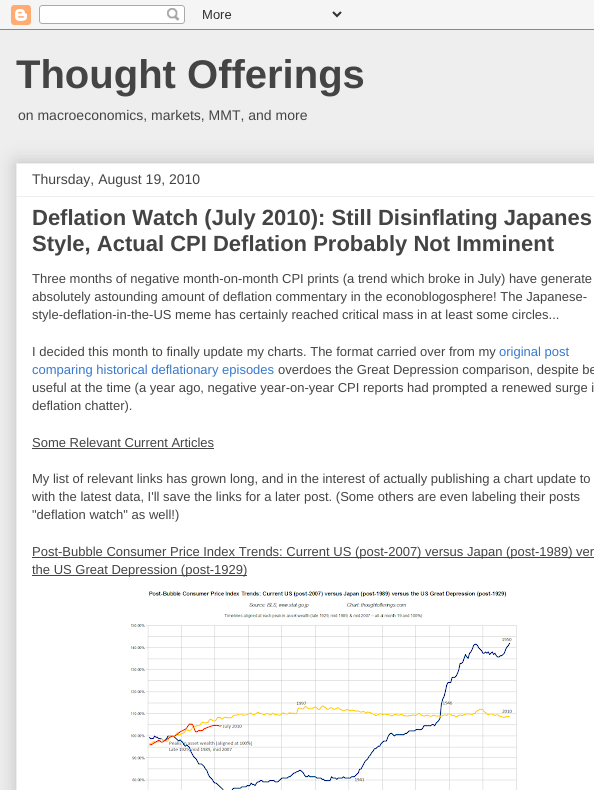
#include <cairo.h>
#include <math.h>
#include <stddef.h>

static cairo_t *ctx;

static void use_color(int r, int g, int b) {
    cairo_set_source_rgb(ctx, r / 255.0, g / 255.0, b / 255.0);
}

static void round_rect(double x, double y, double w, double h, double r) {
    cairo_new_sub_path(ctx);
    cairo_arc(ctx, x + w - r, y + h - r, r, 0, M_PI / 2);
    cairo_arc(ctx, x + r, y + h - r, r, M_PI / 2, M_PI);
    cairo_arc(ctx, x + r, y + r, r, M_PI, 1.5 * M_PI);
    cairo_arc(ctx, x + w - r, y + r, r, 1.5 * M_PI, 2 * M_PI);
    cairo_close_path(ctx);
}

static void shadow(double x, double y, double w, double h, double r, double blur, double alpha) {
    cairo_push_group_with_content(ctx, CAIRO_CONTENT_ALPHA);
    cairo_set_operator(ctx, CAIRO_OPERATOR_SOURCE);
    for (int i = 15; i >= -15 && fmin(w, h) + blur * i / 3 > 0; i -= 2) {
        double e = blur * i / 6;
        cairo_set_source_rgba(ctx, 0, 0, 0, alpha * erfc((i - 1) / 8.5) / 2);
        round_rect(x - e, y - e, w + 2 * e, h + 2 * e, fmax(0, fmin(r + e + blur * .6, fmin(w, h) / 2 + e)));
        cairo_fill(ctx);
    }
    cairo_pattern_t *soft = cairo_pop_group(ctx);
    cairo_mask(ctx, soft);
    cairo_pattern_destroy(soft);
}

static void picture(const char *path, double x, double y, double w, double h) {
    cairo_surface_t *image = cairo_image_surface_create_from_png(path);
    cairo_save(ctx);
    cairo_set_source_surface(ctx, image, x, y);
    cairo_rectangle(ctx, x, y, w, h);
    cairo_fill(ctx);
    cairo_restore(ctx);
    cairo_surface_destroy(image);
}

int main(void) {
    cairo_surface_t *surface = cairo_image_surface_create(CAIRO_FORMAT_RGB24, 594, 790);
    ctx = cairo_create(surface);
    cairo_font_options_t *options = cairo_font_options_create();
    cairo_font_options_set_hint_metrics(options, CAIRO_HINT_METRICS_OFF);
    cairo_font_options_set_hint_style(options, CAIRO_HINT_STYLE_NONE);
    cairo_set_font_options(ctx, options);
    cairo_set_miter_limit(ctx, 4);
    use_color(238, 238, 238);
    cairo_paint(ctx);
    picture("img1.png", 0, 0, 594, 30);
    cairo_select_font_face(ctx, "Liberation Sans", CAIRO_FONT_SLANT_NORMAL, CAIRO_FONT_WEIGHT_BOLD);
    cairo_set_font_size(ctx, 40);
    use_color(68, 68, 68);
    cairo_move_to(ctx, 16, 88);
    cairo_show_text(ctx, "Thought Offerings");
    cairo_select_font_face(ctx, "Liberation Sans", CAIRO_FONT_SLANT_NORMAL, CAIRO_FONT_WEIGHT_NORMAL);
    cairo_set_font_size(ctx, 14);
    cairo_move_to(ctx, 18, 120);
    cairo_show_text(ctx, "on macroeconomics, markets, MMT, and more");
    use_color(0, 0, 0);
    shadow(16, 163, 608, 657, 0, 10, 0.2);
    use_color(255, 255, 255);
    cairo_rectangle(ctx, 16.5, 163.5, 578, 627);
    cairo_fill_preserve(ctx);
    use_color(238, 238, 238);
    cairo_set_line_width(ctx, 1);
    cairo_stroke(ctx);
    use_color(68, 68, 68);
    cairo_move_to(ctx, 32, 184);
    cairo_show_text(ctx, "Thursday, August 19, 2010");
    use_color(238, 238, 238);
    cairo_rectangle(ctx, 17, 196, 577, 1);
    cairo_fill(ctx);
    cairo_select_font_face(ctx, "Liberation Sans", CAIRO_FONT_SLANT_NORMAL, CAIRO_FONT_WEIGHT_BOLD);
    cairo_set_font_size(ctx, 22);
    use_color(68, 68, 68);
    cairo_move_to(ctx, 32, 225);
    cairo_show_text(ctx, "Deflation Watch (July 2010): Still Disinflating Japanes");
    cairo_move_to(ctx, 32, 251);
    cairo_show_text(ctx, "Style, Actual CPI Deflation Probably Not Imminent");
    cairo_select_font_face(ctx, "Liberation Sans", CAIRO_FONT_SLANT_NORMAL, CAIRO_FONT_WEIGHT_NORMAL);
    cairo_set_font_size(ctx, 13);
    cairo_move_to(ctx, 32, 283);
    cairo_show_text(ctx, "Three months of negative month-on-month CPI prints (a trend which broke in July) have generate");
    cairo_move_to(ctx, 32, 301);
    cairo_show_text(ctx, "absolutely astounding amount of deflation commentary in the econoblogosphere! The Japanese-");
    cairo_move_to(ctx, 32, 319);
    cairo_show_text(ctx, "style-deflation-in-the-US meme has certainly reached critical mass in at least some circles...");
    cairo_move_to(ctx, 32, 356);
    cairo_show_text(ctx, "I decided this month to finally update my charts. The format carried over from my");
    use_color(55, 120, 205);
    cairo_move_to(ctx, 499, 356);
    cairo_show_text(ctx, "original post");
    cairo_move_to(ctx, 32, 374);
    cairo_show_text(ctx, "comparing historical deflationary episodes");
    use_color(68, 68, 68);
    cairo_move_to(ctx, 278, 374);
    cairo_show_text(ctx, "overdoes the Great Depression comparison, despite be");
    cairo_move_to(ctx, 32, 392);
    cairo_show_text(ctx, "useful at the time (a year ago, negative year-on-year CPI reports had prompted a renewed surge i");
    cairo_move_to(ctx, 32, 410);
    cairo_show_text(ctx, "deflation chatter).");
    cairo_move_to(ctx, 32, 447);
    cairo_show_text(ctx, "Some Relevant Current Articles");
    cairo_rectangle(ctx, 32, 448, 182, 1);
    cairo_fill(ctx);
    cairo_move_to(ctx, 32, 483);
    cairo_show_text(ctx, "My list of relevant links has grown long, and in the interest of actually publishing a chart update to");
    cairo_move_to(ctx, 32, 501);
    cairo_show_text(ctx, "with the latest data, I'll save the links for a later post. (Some others are even labeling their posts");
    cairo_move_to(ctx, 32, 519);
    cairo_show_text(ctx, "\"deflation watch\" as well!)");
    cairo_rectangle(ctx, 32, 557, 562, 1);
    cairo_fill(ctx);
    cairo_move_to(ctx, 32, 556);
    cairo_show_text(ctx, "Post-Bubble Consumer Price Index Trends: Current US (post-2007) versus Japan (post-1989) ver");
    cairo_rectangle(ctx, 32, 575, 215, 1);
    cairo_fill(ctx);
    cairo_move_to(ctx, 32, 574);
    cairo_show_text(ctx, "the US Great Depression (post-1929)");
    picture("img2.png", 130, 591, 387, 199);
    cairo_surface_write_to_png(surface, "result.png");
    cairo_font_options_destroy(options);
    cairo_destroy(ctx);
    cairo_surface_destroy(surface);
    return 0;
}
